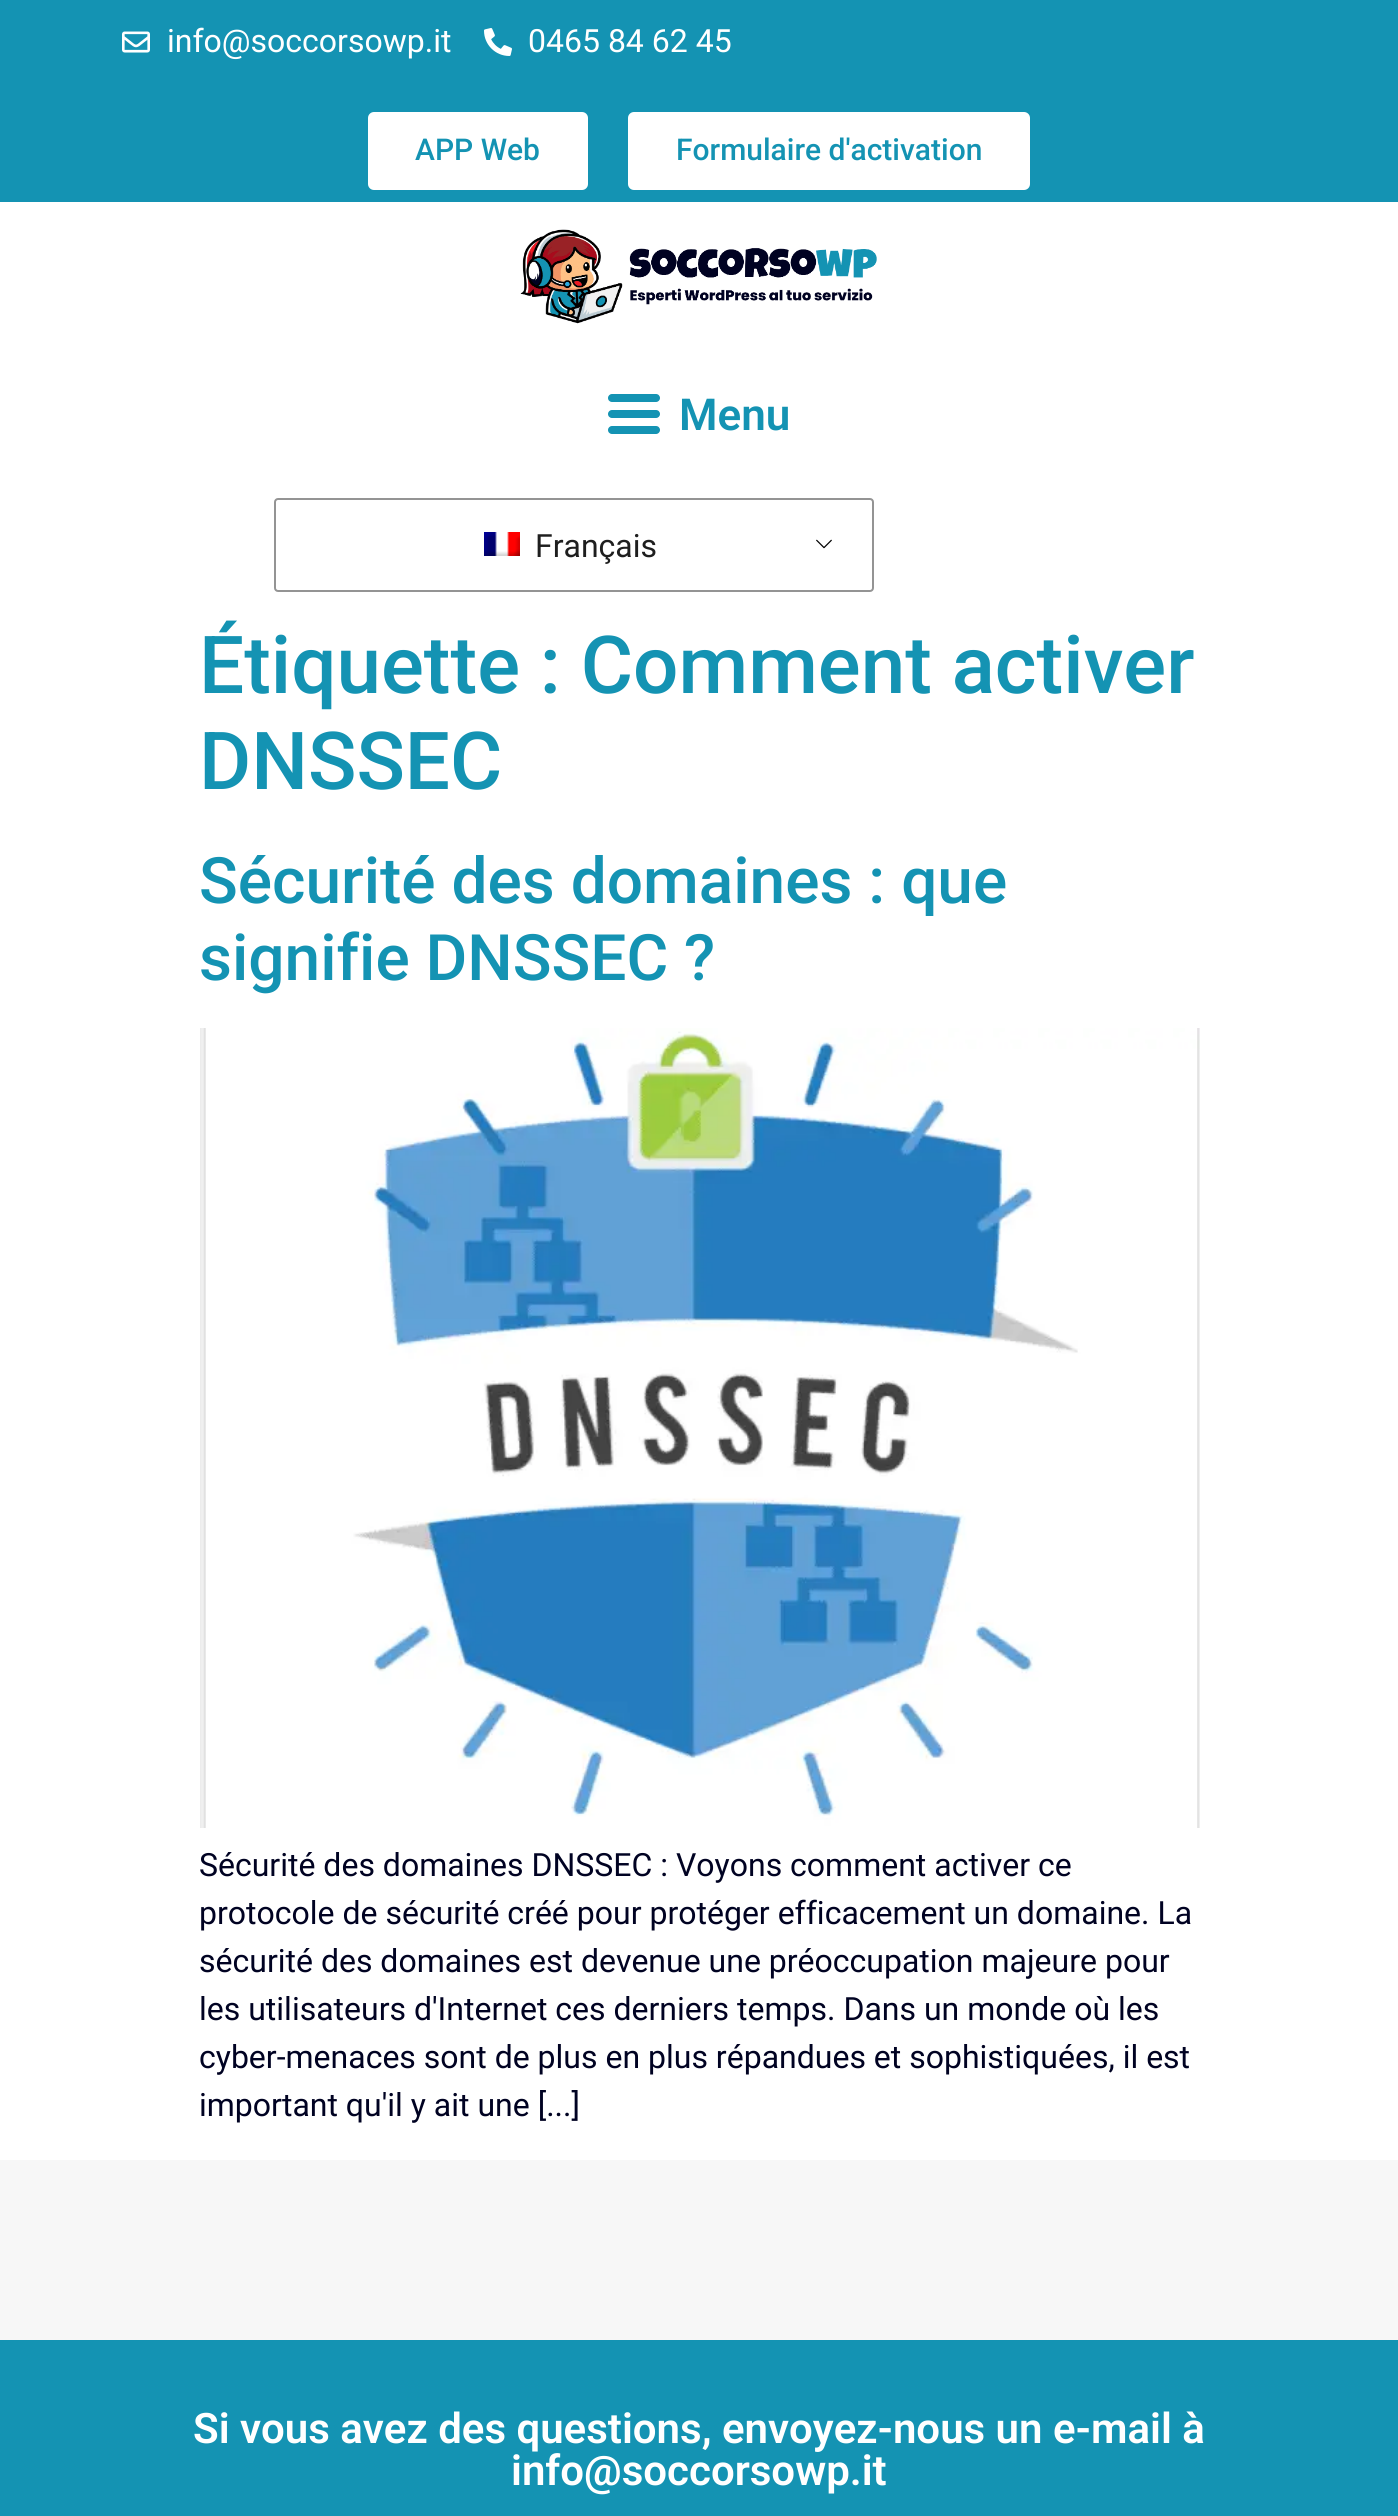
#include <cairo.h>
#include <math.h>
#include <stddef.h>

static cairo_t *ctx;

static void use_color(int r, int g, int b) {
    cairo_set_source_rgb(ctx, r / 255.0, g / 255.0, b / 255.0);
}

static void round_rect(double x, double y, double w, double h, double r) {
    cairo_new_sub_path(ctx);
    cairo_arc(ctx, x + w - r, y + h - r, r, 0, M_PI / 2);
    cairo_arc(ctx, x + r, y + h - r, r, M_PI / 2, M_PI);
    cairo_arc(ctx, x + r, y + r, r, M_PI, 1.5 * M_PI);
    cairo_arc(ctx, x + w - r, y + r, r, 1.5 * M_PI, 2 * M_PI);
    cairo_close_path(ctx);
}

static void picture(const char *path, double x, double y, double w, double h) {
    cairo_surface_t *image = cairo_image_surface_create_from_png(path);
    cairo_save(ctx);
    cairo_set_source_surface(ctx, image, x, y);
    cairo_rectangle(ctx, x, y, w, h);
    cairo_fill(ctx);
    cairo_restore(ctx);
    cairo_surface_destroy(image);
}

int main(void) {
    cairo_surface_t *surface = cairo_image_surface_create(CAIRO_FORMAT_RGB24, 1398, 2516);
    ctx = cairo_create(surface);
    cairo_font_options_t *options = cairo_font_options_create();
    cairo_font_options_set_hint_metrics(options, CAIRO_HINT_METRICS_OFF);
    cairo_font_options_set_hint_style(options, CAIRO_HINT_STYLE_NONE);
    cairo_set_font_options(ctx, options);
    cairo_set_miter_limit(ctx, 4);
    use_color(255, 255, 255);
    cairo_paint(ctx);
    use_color(20, 147, 179);
    cairo_rectangle(ctx, 0, 0, 1398, 202);
    cairo_fill(ctx);
    picture("img1.png", 122, 31, 28, 22);
    cairo_select_font_face(ctx, "Roboto", CAIRO_FONT_SLANT_NORMAL, CAIRO_FONT_WEIGHT_NORMAL);
    cairo_set_font_size(ctx, 32);
    use_color(255, 255, 255);
    cairo_move_to(ctx, 167, 52);
    cairo_show_text(ctx, "info@soccorsowp.it");
    picture("img2.png", 484, 28, 28, 28);
    cairo_move_to(ctx, 528, 52);
    cairo_show_text(ctx, "0465 84 62 45");
    round_rect(368, 112, 220, 78, 6);
    cairo_fill(ctx);
    cairo_select_font_face(ctx, "Roboto Medium", CAIRO_FONT_SLANT_NORMAL, CAIRO_FONT_WEIGHT_NORMAL);
    cairo_set_font_size(ctx, 30);
    use_color(20, 147, 179);
    cairo_move_to(ctx, 415, 160);
    cairo_show_text(ctx, "APP Web");
    use_color(255, 255, 255);
    round_rect(628, 112, 402, 78, 6);
    cairo_fill(ctx);
    use_color(20, 147, 179);
    cairo_move_to(ctx, 676, 160);
    cairo_show_text(ctx, "Formulaire d'activation");
    picture("img3.png", 520, 229, 357, 95);
    round_rect(608, 410, 52, 8, 4);
    cairo_fill(ctx);
    round_rect(608, 394, 52, 8, 4);
    cairo_fill(ctx);
    round_rect(608, 426, 52, 8, 4);
    cairo_fill(ctx);
    cairo_select_font_face(ctx, "Roboto SemiBold", CAIRO_FONT_SLANT_NORMAL, CAIRO_FONT_WEIGHT_NORMAL);
    cairo_set_font_size(ctx, 44);
    cairo_move_to(ctx, 679, 430);
    cairo_show_text(ctx, "Menu");
    picture("img4.png", 816, 539, 16, 10);
    round_rect(275, 499, 598, 92, 3);
    use_color(148, 148, 148);
    cairo_stroke(ctx);
    picture("img5.png", 484, 532, 36, 24);
    cairo_select_font_face(ctx, "Roboto", CAIRO_FONT_SLANT_NORMAL, CAIRO_FONT_WEIGHT_NORMAL);
    cairo_set_font_size(ctx, 32);
    use_color(30, 30, 30);
    cairo_move_to(ctx, 535, 557);
    cairo_show_text(ctx, "Français");
    cairo_select_font_face(ctx, "Roboto Medium", CAIRO_FONT_SLANT_NORMAL, CAIRO_FONT_WEIGHT_NORMAL);
    cairo_set_font_size(ctx, 80);
    use_color(20, 147, 179);
    cairo_move_to(ctx, 199, 693);
    cairo_show_text(ctx, "Étiquette : Comment activer");
    cairo_move_to(ctx, 199, 789);
    cairo_show_text(ctx, "DNSSEC");
    cairo_set_font_size(ctx, 64);
    cairo_move_to(ctx, 199, 903);
    cairo_show_text(ctx, "Sécurité des domaines : que");
    cairo_move_to(ctx, 199, 980);
    cairo_show_text(ctx, "signifie DNSSEC ?");
    picture("img6.png", 200, 1028, 1000, 800);
    cairo_select_font_face(ctx, "Roboto", CAIRO_FONT_SLANT_NORMAL, CAIRO_FONT_WEIGHT_NORMAL);
    cairo_set_font_size(ctx, 32);
    use_color(0, 2, 34);
    cairo_move_to(ctx, 199, 1876);
    cairo_show_text(ctx, "Sécurité des domaines DNSSEC : Voyons comment activer ce");
    cairo_move_to(ctx, 199, 1924);
    cairo_show_text(ctx, "protocole de sécurité créé pour protéger efficacement un domaine. La");
    cairo_move_to(ctx, 199, 1972);
    cairo_show_text(ctx, "sécurité des domaines est devenue une préoccupation majeure pour");
    cairo_move_to(ctx, 199, 2020);
    cairo_show_text(ctx, "les utilisateurs d'Internet ces derniers temps. Dans un monde où les");
    cairo_move_to(ctx, 199, 2068);
    cairo_show_text(ctx, "cyber-menaces sont de plus en plus répandues et sophistiquées, il est");
    cairo_move_to(ctx, 199, 2116);
    cairo_show_text(ctx, "important qu'il y ait une [...]");
    use_color(247, 247, 247);
    cairo_rectangle(ctx, 0, 2160, 1398, 180);
    cairo_fill(ctx);
    use_color(20, 147, 179);
    cairo_rectangle(ctx, 0, 2340, 1398, 176);
    cairo_fill(ctx);
    cairo_select_font_face(ctx, "Roboto SemiBold", CAIRO_FONT_SLANT_NORMAL, CAIRO_FONT_WEIGHT_NORMAL);
    cairo_set_font_size(ctx, 42);
    use_color(255, 255, 255);
    cairo_move_to(ctx, 193, 2443);
    cairo_show_text(ctx, "Si vous avez des questions, envoyez-nous un e-mail à");
    cairo_move_to(ctx, 511, 2485);
    cairo_show_text(ctx, "info@soccorsowp.it");
    cairo_surface_write_to_png(surface, "result.png");
    cairo_font_options_destroy(options);
    cairo_destroy(ctx);
    cairo_surface_destroy(surface);
    return 0;
}
